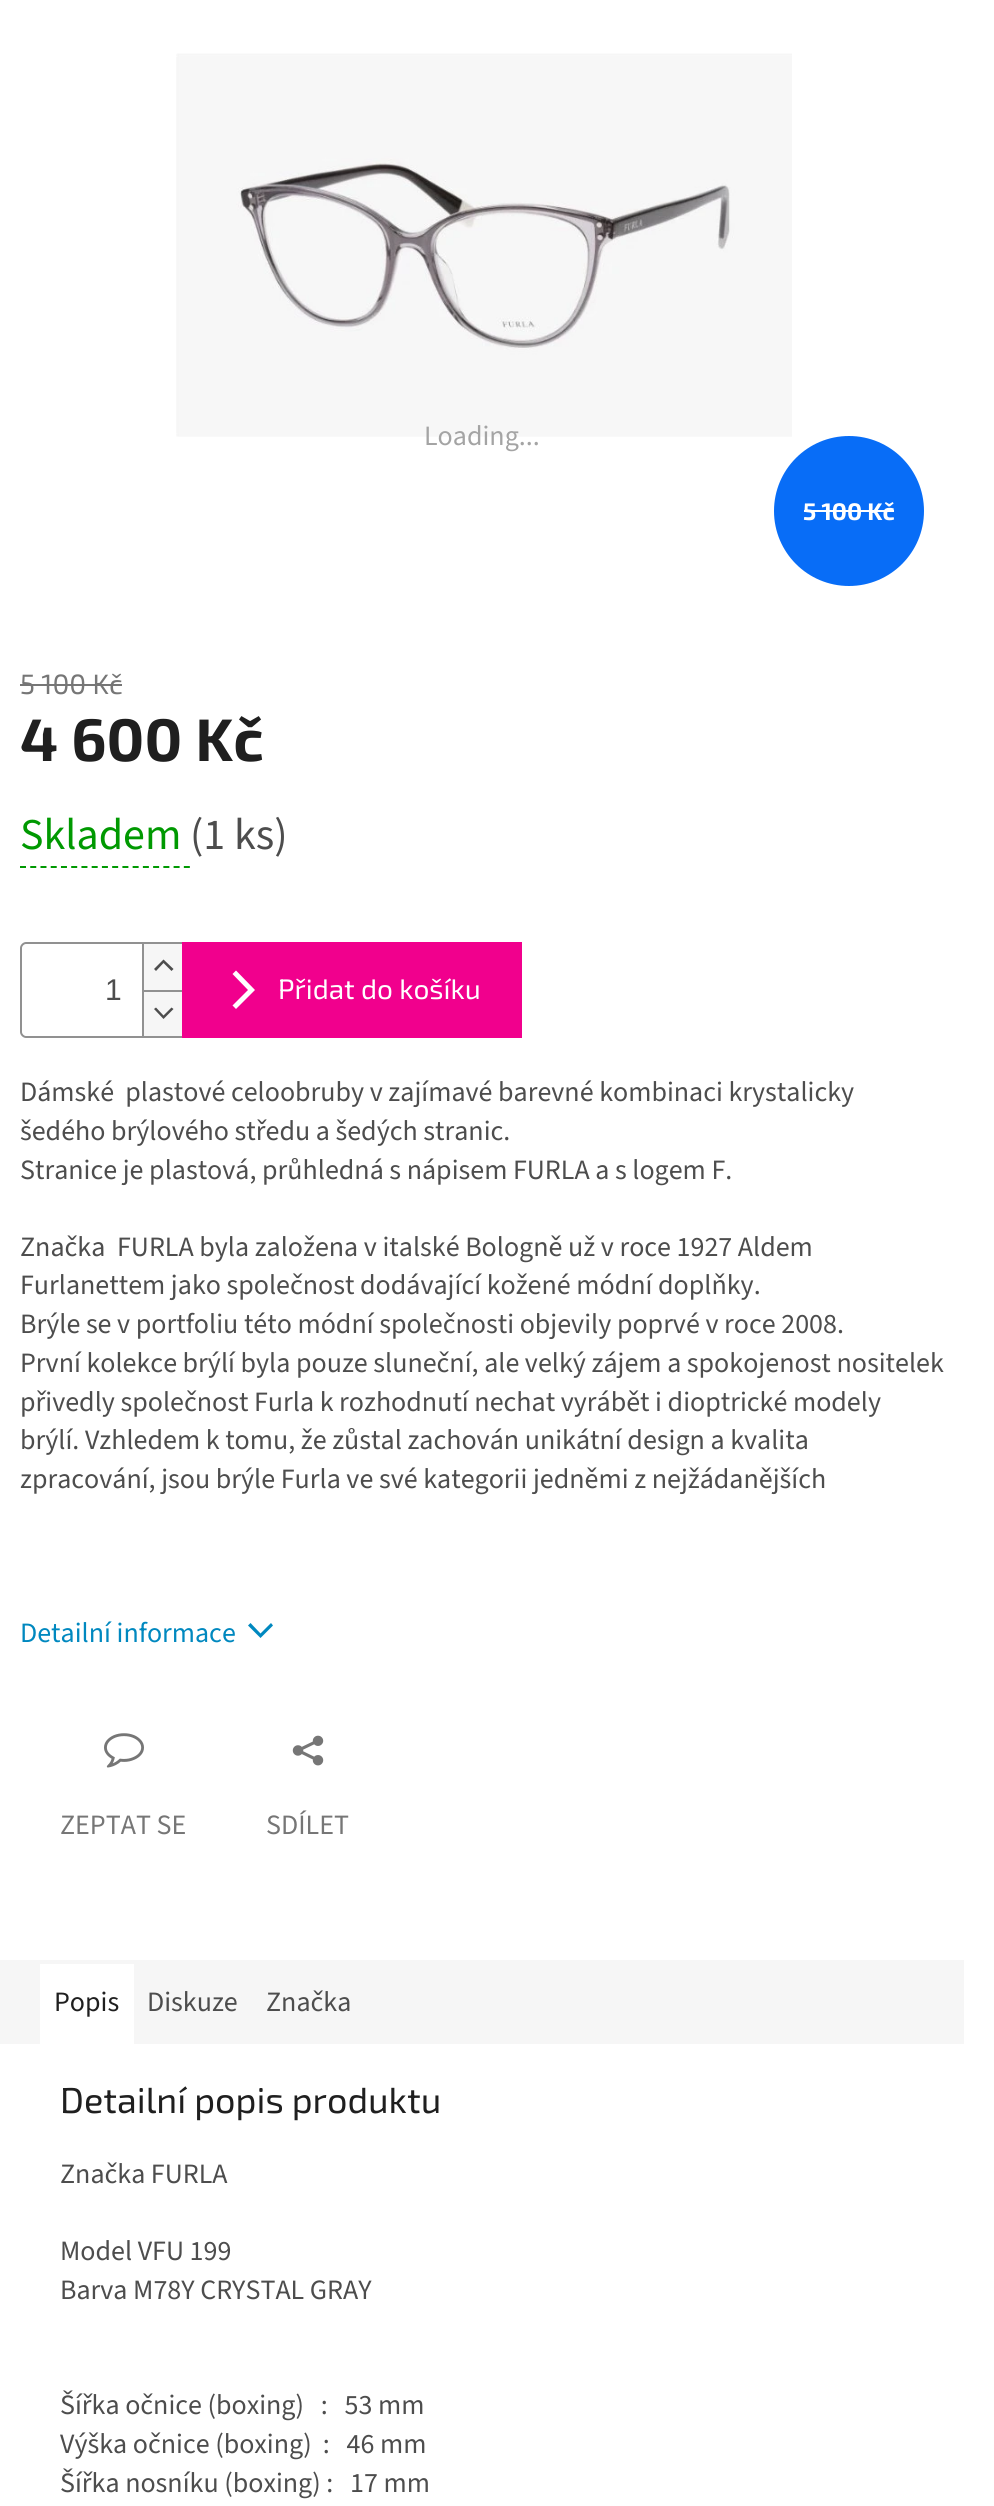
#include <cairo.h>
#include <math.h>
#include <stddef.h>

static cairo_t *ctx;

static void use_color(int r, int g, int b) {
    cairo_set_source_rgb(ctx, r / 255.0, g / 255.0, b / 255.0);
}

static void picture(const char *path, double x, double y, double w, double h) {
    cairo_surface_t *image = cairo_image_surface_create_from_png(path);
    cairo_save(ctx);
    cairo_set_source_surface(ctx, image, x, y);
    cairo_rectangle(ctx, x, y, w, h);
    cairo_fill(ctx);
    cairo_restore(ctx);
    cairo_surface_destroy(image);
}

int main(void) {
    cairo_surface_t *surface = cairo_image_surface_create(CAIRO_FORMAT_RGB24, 994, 2506);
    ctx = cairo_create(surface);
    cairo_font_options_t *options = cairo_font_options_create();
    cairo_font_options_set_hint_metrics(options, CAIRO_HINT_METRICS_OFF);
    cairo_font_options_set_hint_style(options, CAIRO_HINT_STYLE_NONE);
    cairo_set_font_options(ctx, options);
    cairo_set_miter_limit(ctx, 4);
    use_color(255, 255, 255);
    cairo_paint(ctx);
    picture("img1.png", 176, 53, 616, 384);
    cairo_select_font_face(ctx, "Source Sans 3", CAIRO_FONT_SLANT_NORMAL, CAIRO_FONT_WEIGHT_NORMAL);
    cairo_set_font_size(ctx, 28);
    use_color(164, 164, 164);
    cairo_move_to(ctx, 424, 445);
    cairo_show_text(ctx, "Loading...");
    use_color(8, 109, 247);
    cairo_new_path(ctx);
    cairo_arc(ctx, 849, 511, 75, 0, 2 * M_PI);
    cairo_fill(ctx);
    cairo_select_font_face(ctx, "Exo 2", CAIRO_FONT_SLANT_NORMAL, CAIRO_FONT_WEIGHT_BOLD);
    cairo_set_font_size(ctx, 24);
    use_color(255, 255, 255);
    cairo_move_to(ctx, 803, 520);
    cairo_show_text(ctx, "5 100 Kč");
    cairo_rectangle(ctx, 804, 510, 90, 2);
    cairo_fill(ctx);
    cairo_select_font_face(ctx, "Exo 2", CAIRO_FONT_SLANT_NORMAL, CAIRO_FONT_WEIGHT_NORMAL);
    cairo_set_font_size(ctx, 28);
    use_color(118, 118, 118);
    cairo_move_to(ctx, 20, 694);
    cairo_show_text(ctx, "5 100 Kč");
    cairo_rectangle(ctx, 20, 684, 102, 2);
    cairo_fill(ctx);
    cairo_select_font_face(ctx, "Exo 2", CAIRO_FONT_SLANT_NORMAL, CAIRO_FONT_WEIGHT_BOLD);
    cairo_set_font_size(ctx, 60);
    use_color(31, 31, 31);
    cairo_move_to(ctx, 20, 761);
    cairo_show_text(ctx, "4 600 Kč");
    cairo_select_font_face(ctx, "Source Sans 3", CAIRO_FONT_SLANT_NORMAL, CAIRO_FONT_WEIGHT_NORMAL);
    cairo_set_font_size(ctx, 44);
    use_color(0, 153, 1);
    cairo_move_to(ctx, 20, 849);
    cairo_show_text(ctx, "Skladem");
    cairo_new_path(ctx);
    cairo_move_to(ctx, 20, 867);
    cairo_line_to(ctx, 190, 867);
    cairo_set_dash(ctx, (double[]){6, 4.24}, 2, 0);
    cairo_stroke(ctx);
    use_color(77, 77, 77);
    cairo_move_to(ctx, 190, 849);
    cairo_show_text(ctx, "(1 ks)");
    use_color(145, 145, 145);
    cairo_set_fill_rule(ctx, CAIRO_FILL_RULE_EVEN_ODD);
    cairo_new_path(ctx);
    cairo_move_to(ctx, 26, 942);
    cairo_line_to(ctx, 182, 942);
    cairo_line_to(ctx, 182, 1038);
    cairo_line_to(ctx, 26, 1038);
    cairo_curve_to(ctx, 23, 1038, 20, 1035, 20, 1032);
    cairo_line_to(ctx, 20, 948);
    cairo_curve_to(ctx, 20, 945, 23, 942, 26, 942);
    cairo_close_path(ctx);
    cairo_move_to(ctx, 26, 944);
    cairo_line_to(ctx, 182, 944);
    cairo_line_to(ctx, 182, 1036);
    cairo_line_to(ctx, 26, 1036);
    cairo_curve_to(ctx, 24, 1036, 22, 1034, 22, 1032);
    cairo_line_to(ctx, 22, 948);
    cairo_curve_to(ctx, 22, 946, 24, 944, 26, 944);
    cairo_close_path(ctx);
    cairo_fill(ctx);
    cairo_select_font_face(ctx, "Liberation Sans", CAIRO_FONT_SLANT_NORMAL, CAIRO_FONT_WEIGHT_NORMAL);
    cairo_set_font_size(ctx, 30);
    use_color(77, 77, 77);
    cairo_move_to(ctx, 105, 1000);
    cairo_show_text(ctx, "1");
    use_color(246, 246, 246);
    cairo_rectangle(ctx, 144, 944, 38, 46);
    cairo_fill(ctx);
    use_color(145, 145, 145);
    cairo_rectangle(ctx, 142, 944, 2, 46);
    cairo_fill(ctx);
    use_color(77, 77, 77);
    cairo_set_fill_rule(ctx, CAIRO_FILL_RULE_WINDING);
    cairo_new_path(ctx);
    cairo_move_to(ctx, 154, 969);
    cairo_line_to(ctx, 156, 971);
    cairo_line_to(ctx, 163.5, 963);
    cairo_line_to(ctx, 171.5, 971);
    cairo_line_to(ctx, 173.5, 969);
    cairo_line_to(ctx, 163.5, 959.5);
    cairo_close_path(ctx);
    cairo_fill(ctx);
    use_color(246, 246, 246);
    cairo_rectangle(ctx, 144, 992, 38, 44);
    cairo_fill(ctx);
    use_color(145, 145, 145);
    cairo_rectangle(ctx, 142, 990, 40, 2);
    cairo_fill(ctx);
    cairo_rectangle(ctx, 142, 990, 2, 46);
    cairo_fill(ctx);
    use_color(77, 77, 77);
    cairo_new_path(ctx);
    cairo_move_to(ctx, 154, 1009);
    cairo_line_to(ctx, 156, 1007.5);
    cairo_line_to(ctx, 163.5, 1015.5);
    cairo_line_to(ctx, 171.5, 1007.5);
    cairo_line_to(ctx, 173.5, 1009);
    cairo_line_to(ctx, 163.5, 1019);
    cairo_close_path(ctx);
    cairo_fill(ctx);
    use_color(241, 0, 141);
    cairo_rectangle(ctx, 182, 942, 340, 96);
    cairo_fill(ctx);
    use_color(255, 255, 255);
    cairo_new_path(ctx);
    cairo_move_to(ctx, 236, 1009);
    cairo_line_to(ctx, 232.5, 1005.5);
    cairo_line_to(ctx, 248, 990);
    cairo_line_to(ctx, 232.5, 974);
    cairo_line_to(ctx, 236, 970.5);
    cairo_line_to(ctx, 255, 990);
    cairo_close_path(ctx);
    cairo_fill(ctx);
    cairo_select_font_face(ctx, "Exo 2", CAIRO_FONT_SLANT_NORMAL, CAIRO_FONT_WEIGHT_NORMAL);
    cairo_set_font_size(ctx, 28);
    cairo_move_to(ctx, 278, 999);
    cairo_show_text(ctx, "Přidat do košíku");
    cairo_select_font_face(ctx, "Source Sans 3", CAIRO_FONT_SLANT_NORMAL, CAIRO_FONT_WEIGHT_NORMAL);
    use_color(77, 77, 77);
    cairo_move_to(ctx, 20, 1101);
    cairo_show_text(ctx, "Dámské  plastové celoobruby v zajímavé barevné kombinaci krystalicky");
    cairo_move_to(ctx, 20, 1140);
    cairo_show_text(ctx, "šedého brýlového středu a šedých stranic.");
    cairo_move_to(ctx, 20, 1179);
    cairo_show_text(ctx, "Stranice je plastová, průhledná s nápisem FURLA a s logem F.");
    cairo_move_to(ctx, 20, 1256);
    cairo_show_text(ctx, "Značka");
    cairo_move_to(ctx, 117, 1256);
    cairo_show_text(ctx, "FURLA byla založena v italské Bologně už v roce 1927 Aldem");
    cairo_move_to(ctx, 20, 1294);
    cairo_show_text(ctx, "Furlanettem jako společnost dodávající kožené módní doplňky.");
    cairo_move_to(ctx, 20, 1333);
    cairo_show_text(ctx, "Brýle se v portfoliu této módní společnosti objevily poprvé v roce 2008.");
    cairo_move_to(ctx, 20, 1372);
    cairo_show_text(ctx, "První kolekce brýlí byla pouze sluneční, ale velký zájem a spokojenost nositelek");
    cairo_move_to(ctx, 20, 1411);
    cairo_show_text(ctx, "přivedly společnost Furla k rozhodnutí nechat vyrábět i dioptrické modely");
    cairo_move_to(ctx, 20, 1449);
    cairo_show_text(ctx, "brýlí. Vzhledem k tomu, že zůstal zachován unikátní design a kvalita");
    cairo_move_to(ctx, 20, 1488);
    cairo_show_text(ctx, "zpracování, jsou brýle Furla ve své kategorii jedněmi z nejžádanějších");
    use_color(0, 136, 191);
    cairo_move_to(ctx, 20, 1642);
    cairo_show_text(ctx, "Detailní informace");
    cairo_new_path(ctx);
    cairo_move_to(ctx, 248, 1625.5);
    cairo_line_to(ctx, 250.5, 1623);
    cairo_line_to(ctx, 260.5, 1633.5);
    cairo_line_to(ctx, 271, 1623);
    cairo_line_to(ctx, 273, 1625.5);
    cairo_line_to(ctx, 260.5, 1638);
    cairo_close_path(ctx);
    cairo_fill(ctx);
    picture("img2.png", 104, 1733, 40, 35);
    use_color(118, 118, 118);
    cairo_move_to(ctx, 60, 1834);
    cairo_show_text(ctx, "ZEPTAT SE");
    picture("img3.png", 292, 1735, 32, 31);
    cairo_move_to(ctx, 266, 1834);
    cairo_show_text(ctx, "SDÍLET");
    use_color(246, 246, 246);
    cairo_rectangle(ctx, 0, 1960, 964, 84);
    cairo_fill(ctx);
    use_color(255, 255, 255);
    cairo_rectangle(ctx, 40, 1964, 94, 80);
    cairo_fill(ctx);
    use_color(31, 31, 31);
    cairo_move_to(ctx, 54, 2011);
    cairo_show_text(ctx, "Popis");
    use_color(77, 77, 77);
    cairo_move_to(ctx, 147, 2011);
    cairo_show_text(ctx, "Diskuze");
    cairo_move_to(ctx, 266, 2011);
    cairo_show_text(ctx, "Značka");
    cairo_select_font_face(ctx, "Exo 2", CAIRO_FONT_SLANT_NORMAL, CAIRO_FONT_WEIGHT_NORMAL);
    cairo_set_font_size(ctx, 36);
    use_color(31, 31, 31);
    cairo_move_to(ctx, 60, 2113);
    cairo_show_text(ctx, "Detailní popis produktu");
    cairo_select_font_face(ctx, "Source Sans 3", CAIRO_FONT_SLANT_NORMAL, CAIRO_FONT_WEIGHT_NORMAL);
    cairo_set_font_size(ctx, 28);
    use_color(77, 77, 77);
    cairo_move_to(ctx, 60, 2183);
    cairo_show_text(ctx, "Značka FURLA");
    cairo_move_to(ctx, 60, 2260);
    cairo_show_text(ctx, "Model VFU 199");
    cairo_move_to(ctx, 60, 2299);
    cairo_show_text(ctx, "Barva M78Y CRYSTAL GRAY");
    cairo_move_to(ctx, 60, 2414);
    cairo_show_text(ctx, "Šířka očnice (boxing)   :   53 mm");
    cairo_move_to(ctx, 60, 2453);
    cairo_show_text(ctx, "Výška očnice (boxing)  :   46 mm");
    cairo_move_to(ctx, 60, 2492);
    cairo_show_text(ctx, "Šířka nosníku (boxing) :   17 mm");
    cairo_surface_write_to_png(surface, "result.png");
    cairo_font_options_destroy(options);
    cairo_destroy(ctx);
    cairo_surface_destroy(surface);
    return 0;
}
